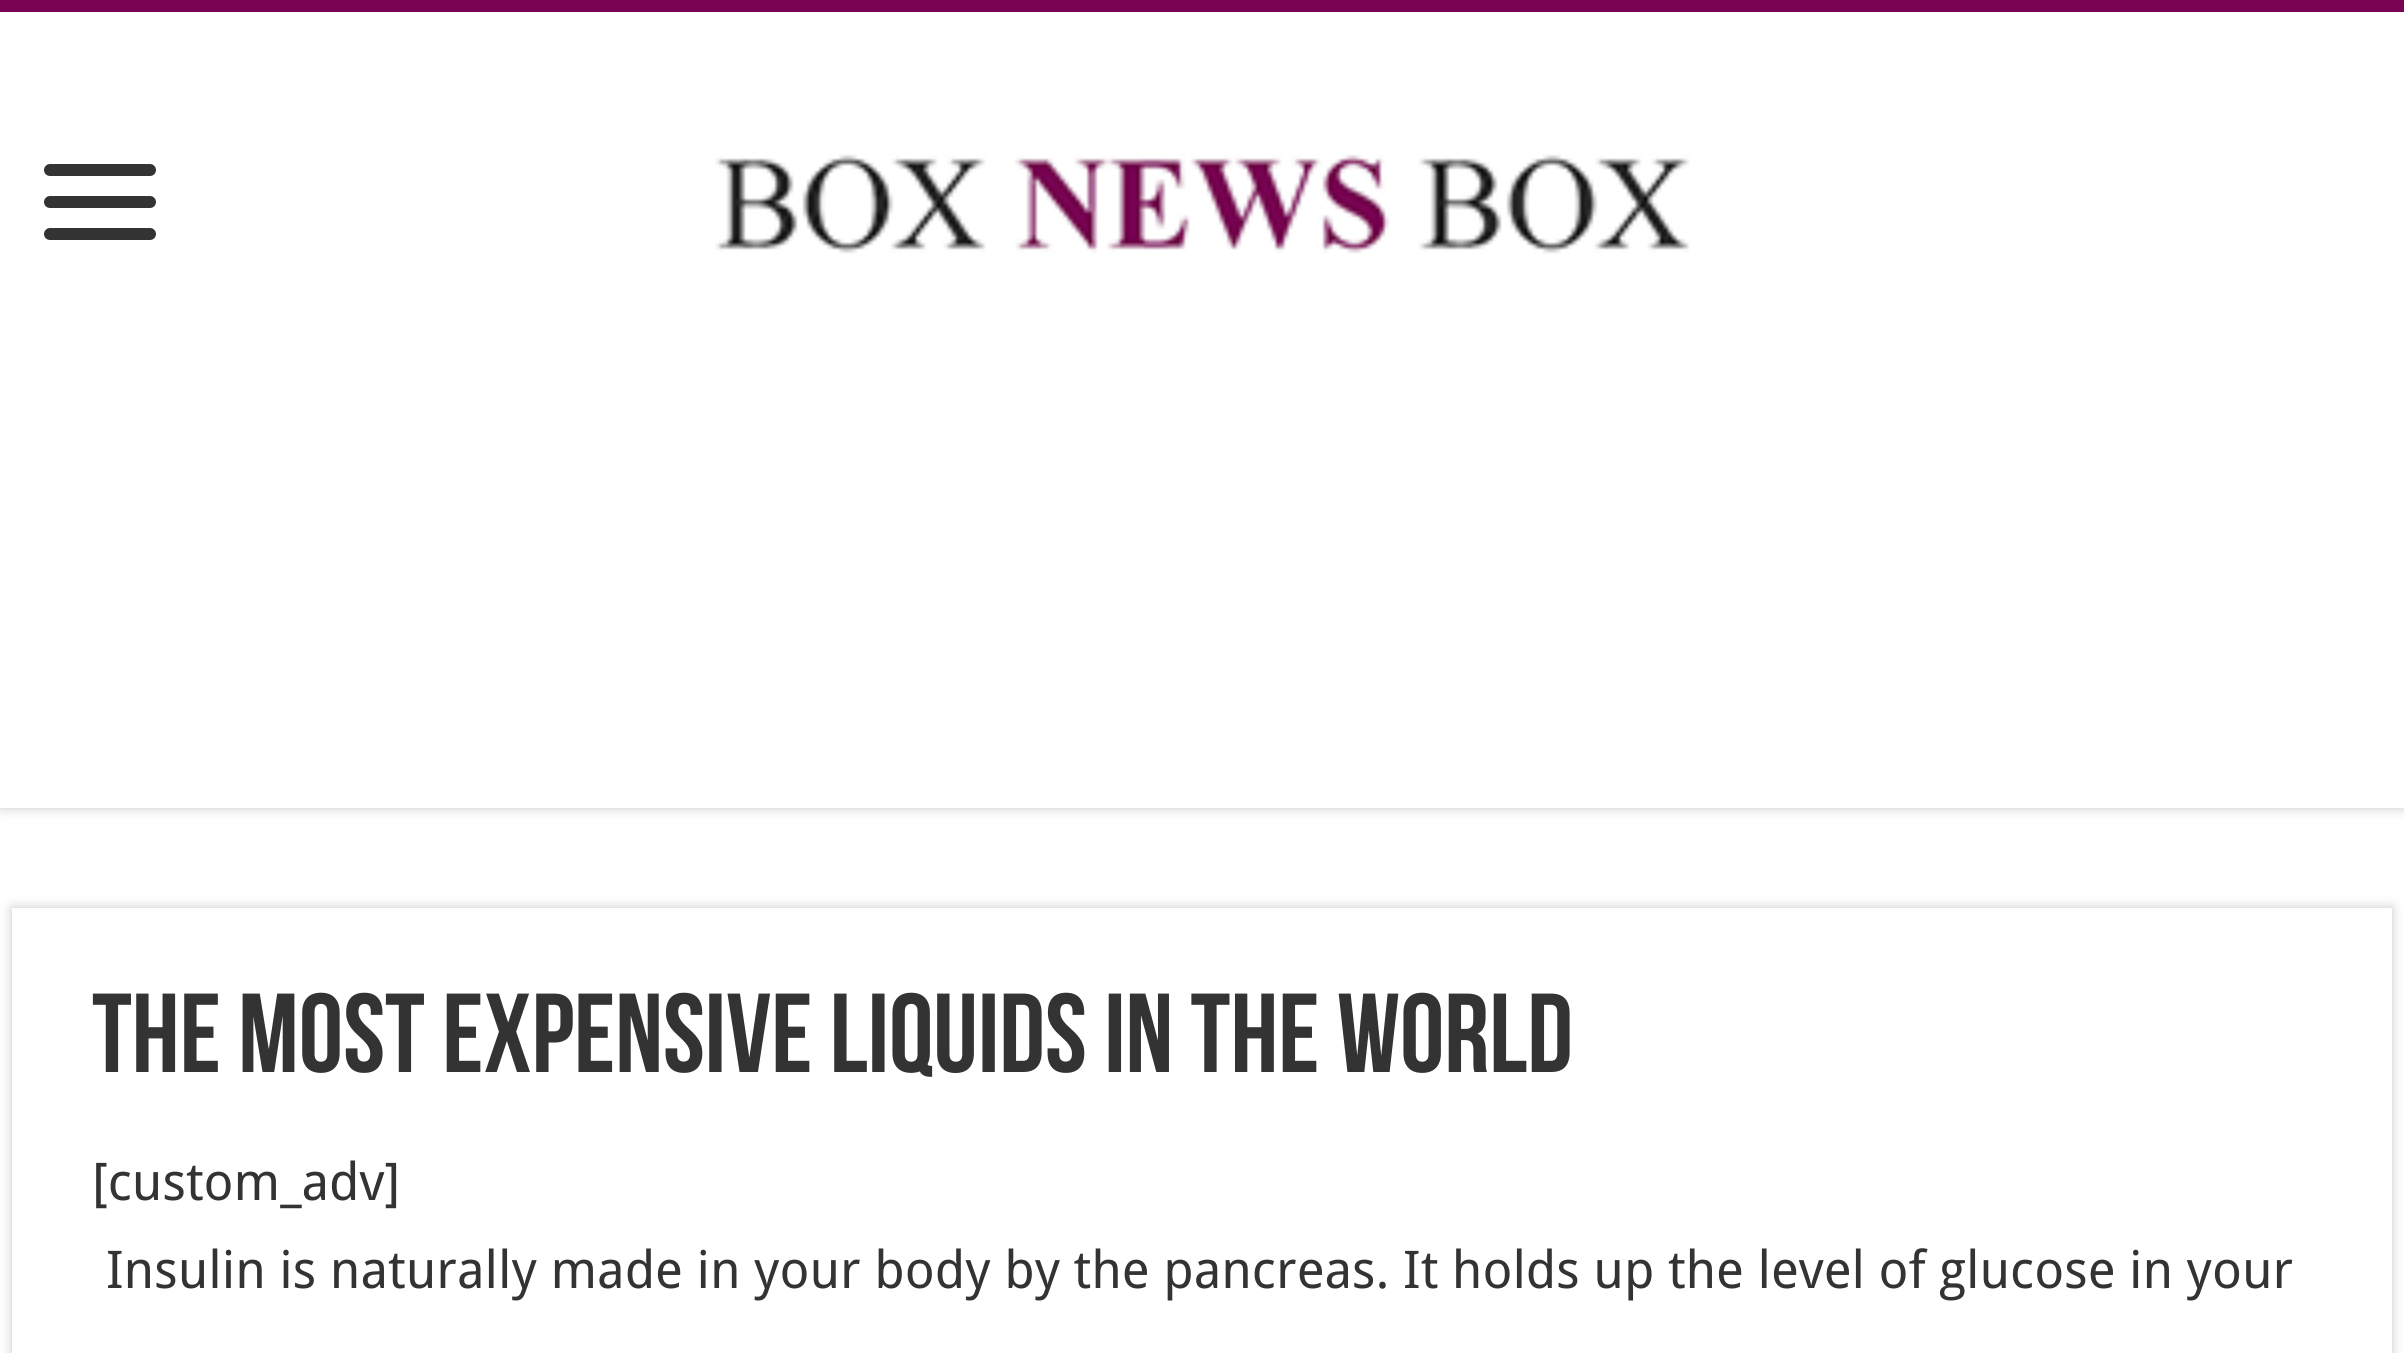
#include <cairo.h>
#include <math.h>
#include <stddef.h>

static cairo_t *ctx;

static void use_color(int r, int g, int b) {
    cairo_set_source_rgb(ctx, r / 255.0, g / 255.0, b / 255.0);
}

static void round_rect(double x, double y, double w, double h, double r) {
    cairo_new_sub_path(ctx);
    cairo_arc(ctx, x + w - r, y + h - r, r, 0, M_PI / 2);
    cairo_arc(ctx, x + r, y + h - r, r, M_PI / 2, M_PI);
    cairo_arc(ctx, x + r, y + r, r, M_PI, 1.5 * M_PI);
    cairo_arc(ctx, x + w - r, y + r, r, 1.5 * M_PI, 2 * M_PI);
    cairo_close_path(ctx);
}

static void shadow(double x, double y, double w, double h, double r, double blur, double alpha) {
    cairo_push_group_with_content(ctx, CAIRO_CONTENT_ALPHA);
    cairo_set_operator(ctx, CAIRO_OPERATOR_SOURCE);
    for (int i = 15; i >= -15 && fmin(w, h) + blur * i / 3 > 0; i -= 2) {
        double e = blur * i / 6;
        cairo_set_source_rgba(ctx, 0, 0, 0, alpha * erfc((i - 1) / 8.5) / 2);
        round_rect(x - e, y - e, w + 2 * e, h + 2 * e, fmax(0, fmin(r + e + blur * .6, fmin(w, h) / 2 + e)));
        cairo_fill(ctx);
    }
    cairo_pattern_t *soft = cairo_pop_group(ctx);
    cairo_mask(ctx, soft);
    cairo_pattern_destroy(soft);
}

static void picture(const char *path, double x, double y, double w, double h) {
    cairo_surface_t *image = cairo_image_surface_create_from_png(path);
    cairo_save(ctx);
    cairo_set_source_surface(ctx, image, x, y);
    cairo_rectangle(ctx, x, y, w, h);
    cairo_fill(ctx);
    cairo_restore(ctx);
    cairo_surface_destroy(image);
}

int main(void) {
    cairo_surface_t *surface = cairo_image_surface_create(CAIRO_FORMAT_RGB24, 2404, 1353);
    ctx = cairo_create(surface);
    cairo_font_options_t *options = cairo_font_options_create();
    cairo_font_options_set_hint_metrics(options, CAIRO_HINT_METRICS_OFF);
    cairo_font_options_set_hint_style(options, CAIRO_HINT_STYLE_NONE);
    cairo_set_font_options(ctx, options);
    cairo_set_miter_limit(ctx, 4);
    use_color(255, 255, 255);
    cairo_paint(ctx);
    cairo_save(ctx);
    cairo_rectangle(ctx, 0, 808, 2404, 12);
    cairo_clip(ctx);
    use_color(202, 202, 202);
    shadow(0, 0, 2404, 808, 0, 6, 1);
    cairo_restore(ctx);
    use_color(120, 4, 83);
    cairo_rectangle(ctx, 0, 0, 2404, 12);
    cairo_fill(ctx);
    use_color(51, 51, 51);
    round_rect(44, 164, 112, 12, 6);
    cairo_fill(ctx);
    round_rect(44, 196, 112, 12, 6);
    cairo_fill(ctx);
    round_rect(44, 228, 112, 12, 6);
    cairo_fill(ctx);
    picture("img1.png", 715, 154, 975, 100);
    cairo_save(ctx);
    cairo_set_fill_rule(ctx, CAIRO_FILL_RULE_EVEN_ODD);
    cairo_new_path(ctx);
    cairo_move_to(ctx, 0, 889);
    cairo_line_to(ctx, 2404, 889);
    cairo_line_to(ctx, 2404, 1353);
    cairo_line_to(ctx, 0, 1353);
    cairo_close_path(ctx);
    cairo_move_to(ctx, 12, 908);
    cairo_line_to(ctx, 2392, 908);
    cairo_line_to(ctx, 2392, 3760);
    cairo_line_to(ctx, 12, 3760);
    cairo_close_path(ctx);
    cairo_clip(ctx);
    use_color(202, 202, 202);
    shadow(12, 908, 2380, 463, 0, 6, 1);
    cairo_restore(ctx);
    cairo_select_font_face(ctx, "Bebas Neue", CAIRO_FONT_SLANT_NORMAL, CAIRO_FONT_WEIGHT_BOLD);
    cairo_set_font_size(ctx, 112);
    cairo_move_to(ctx, 92, 1072);
    cairo_show_text(ctx, "The Most Expensive Liquids In The World");
    cairo_select_font_face(ctx, "Droid Sans", CAIRO_FONT_SLANT_NORMAL, CAIRO_FONT_WEIGHT_NORMAL);
    cairo_set_font_size(ctx, 52);
    cairo_move_to(ctx, 92, 1200);
    cairo_show_text(ctx, "[custom_adv]");
    cairo_move_to(ctx, 106, 1288);
    cairo_show_text(ctx, "Insulin is naturally made in your body by the pancreas. It holds up the level of glucose in your");
    cairo_surface_write_to_png(surface, "result.png");
    cairo_font_options_destroy(options);
    cairo_destroy(ctx);
    cairo_surface_destroy(surface);
    return 0;
}
